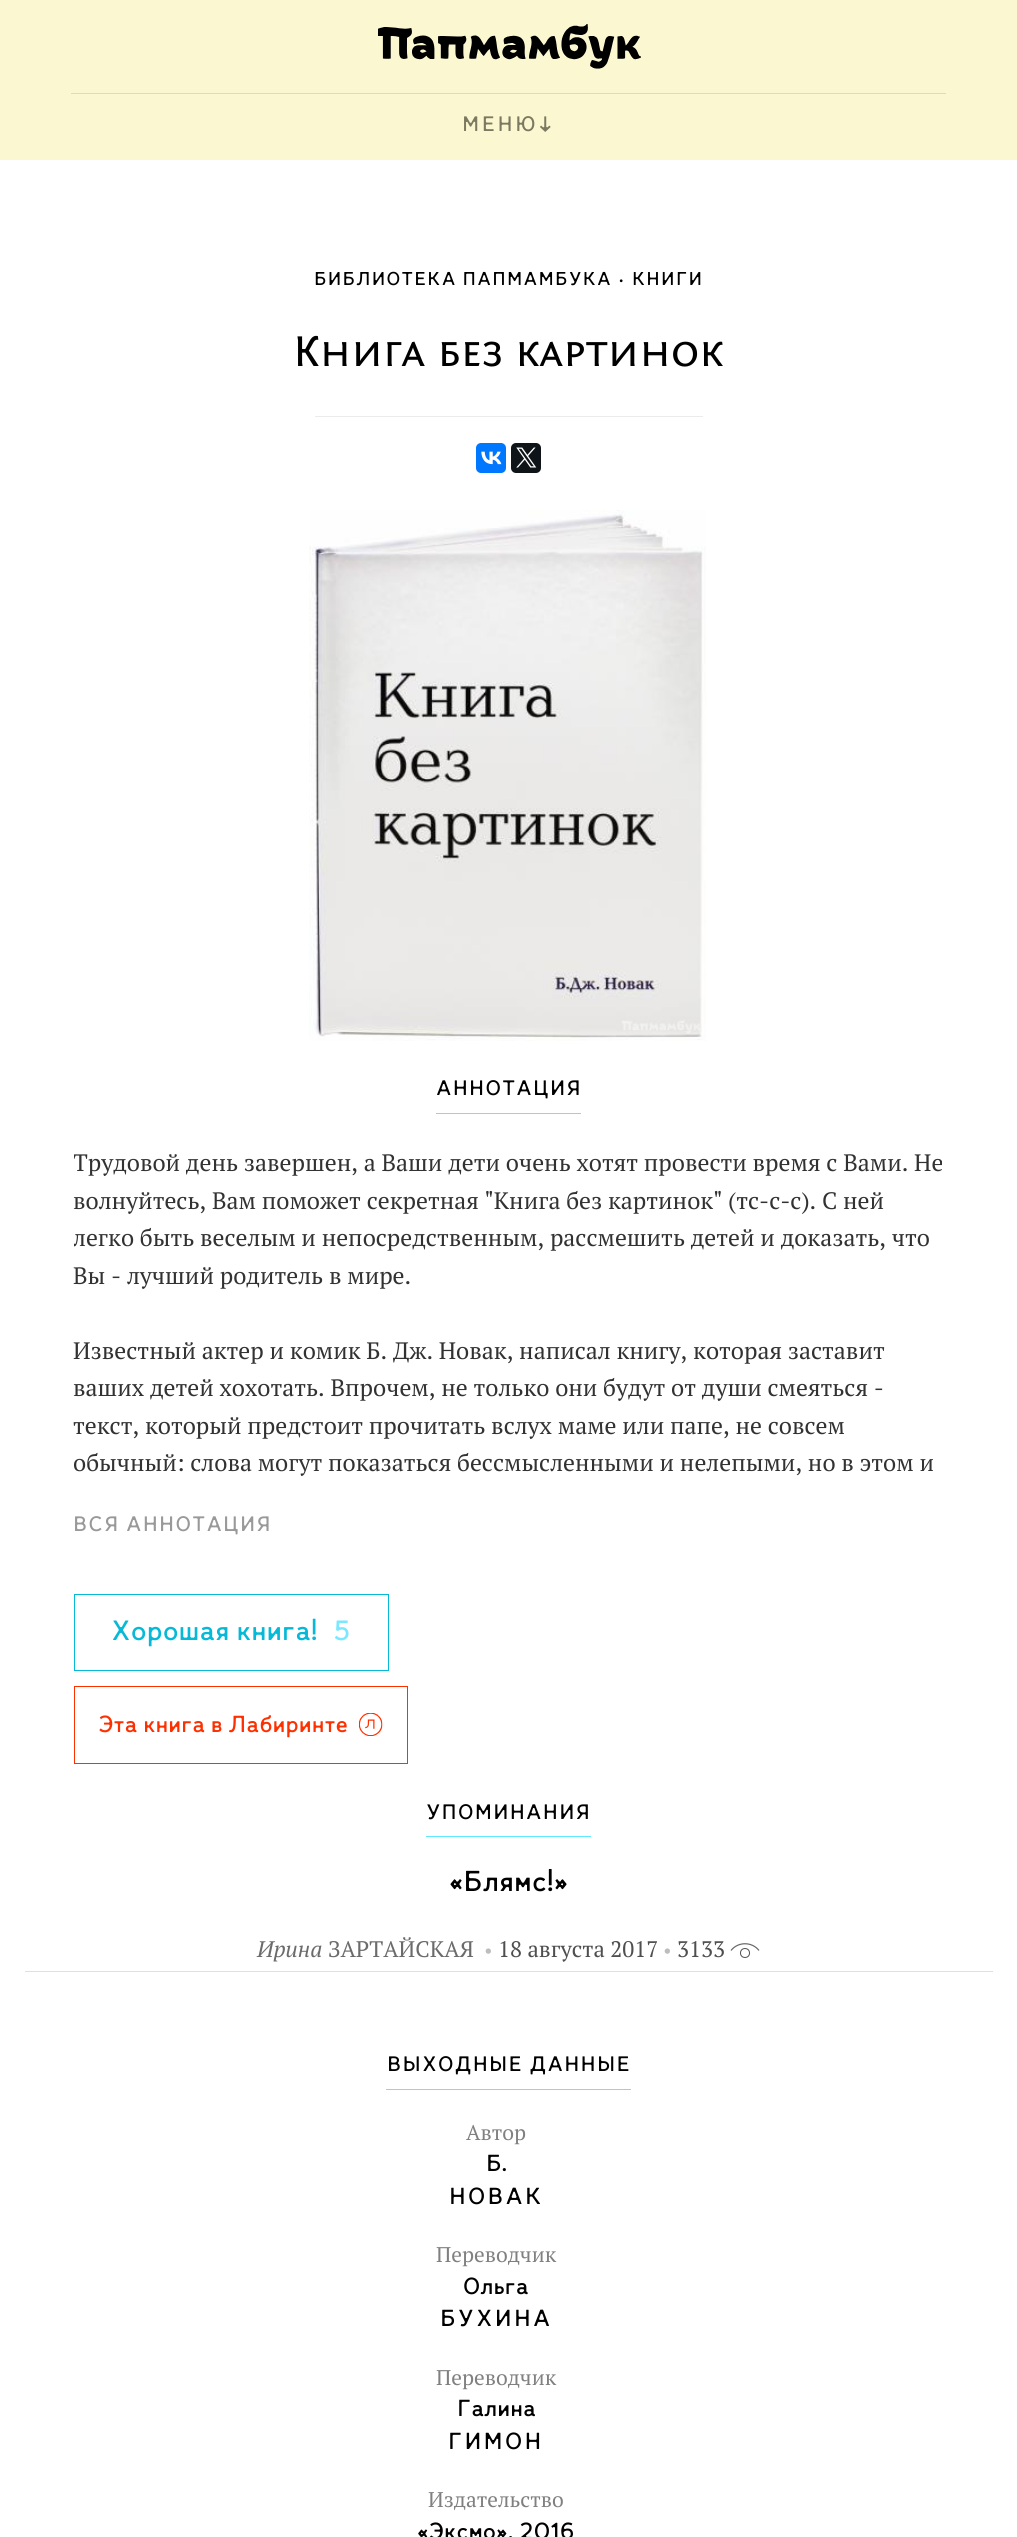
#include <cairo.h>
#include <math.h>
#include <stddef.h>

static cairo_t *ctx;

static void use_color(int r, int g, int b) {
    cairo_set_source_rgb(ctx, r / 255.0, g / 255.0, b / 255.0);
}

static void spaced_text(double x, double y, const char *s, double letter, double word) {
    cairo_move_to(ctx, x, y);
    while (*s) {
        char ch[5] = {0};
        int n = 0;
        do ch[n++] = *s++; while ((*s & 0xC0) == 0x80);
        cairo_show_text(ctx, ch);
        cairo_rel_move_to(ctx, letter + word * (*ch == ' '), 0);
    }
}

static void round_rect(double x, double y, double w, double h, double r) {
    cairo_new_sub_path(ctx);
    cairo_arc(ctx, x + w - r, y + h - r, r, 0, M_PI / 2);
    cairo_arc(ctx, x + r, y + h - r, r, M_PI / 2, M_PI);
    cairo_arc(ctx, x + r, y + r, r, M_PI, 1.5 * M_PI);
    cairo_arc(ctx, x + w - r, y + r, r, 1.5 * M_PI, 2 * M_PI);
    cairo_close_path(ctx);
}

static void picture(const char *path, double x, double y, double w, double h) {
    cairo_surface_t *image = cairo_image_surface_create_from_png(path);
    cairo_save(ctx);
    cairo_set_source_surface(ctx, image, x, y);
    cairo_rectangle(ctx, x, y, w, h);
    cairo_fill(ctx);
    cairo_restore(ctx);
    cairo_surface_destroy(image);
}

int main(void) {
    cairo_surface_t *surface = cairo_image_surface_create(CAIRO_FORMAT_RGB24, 1017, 2537);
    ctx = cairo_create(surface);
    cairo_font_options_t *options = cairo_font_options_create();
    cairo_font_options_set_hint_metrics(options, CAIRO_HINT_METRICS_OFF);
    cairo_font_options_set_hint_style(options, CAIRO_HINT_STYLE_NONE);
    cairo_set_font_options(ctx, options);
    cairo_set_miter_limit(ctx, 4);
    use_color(255, 255, 255);
    cairo_paint(ctx);
    use_color(251, 247, 209);
    cairo_rectangle(ctx, 0, 0, 1017, 160);
    cairo_fill(ctx);
    picture("img1.png", 378, 24, 263, 45);
    use_color(221, 218, 191);
    cairo_rectangle(ctx, 71, 93, 875, 1);
    cairo_fill(ctx);
    cairo_select_font_face(ctx, "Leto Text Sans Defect", CAIRO_FONT_SLANT_NORMAL, CAIRO_FONT_WEIGHT_NORMAL);
    cairo_set_font_size(ctx, 22.5);
    use_color(123, 121, 97);
    spaced_text(462, 131, "МЕНЮ↓", 2.5, 0);
    cairo_set_font_size(ctx, 20);
    use_color(0, 0, 0);
    spaced_text(314, 285, "БИБЛИОТЕКА ПАПМАМБУКА", 1.25, 0);
    spaced_text(618, 285, "•", 1.25, 0);
    spaced_text(632, 285, "КНИГИ", 1.25, 0);
    cairo_select_font_face(ctx, "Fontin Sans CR", CAIRO_FONT_SLANT_NORMAL, CAIRO_FONT_WEIGHT_NORMAL);
    cairo_set_font_size(ctx, 45);
    cairo_move_to(ctx, 293, 366);
    cairo_show_text(ctx, "Книга без картинок");
    use_color(235, 235, 235);
    cairo_rectangle(ctx, 315, 416, 388, 1);
    cairo_fill(ctx);
    use_color(0, 119, 255);
    round_rect(476, 443, 30, 30, 5);
    cairo_fill(ctx);
    picture("img2.png", 481, 451, 21, 14);
    use_color(15, 20, 25);
    round_rect(511, 443, 30, 30, 5);
    cairo_fill(ctx);
    picture("img3.png", 516, 447, 21, 21);
    picture("img4.png", 309, 510, 397, 531);
    use_color(97, 232, 255);
    cairo_rectangle(ctx, 436, 1113, 145, 1);
    cairo_fill(ctx);
    cairo_select_font_face(ctx, "Leto Text Sans Defect", CAIRO_FONT_SLANT_NORMAL, CAIRO_FONT_WEIGHT_NORMAL);
    cairo_set_font_size(ctx, 22.5);
    use_color(0, 0, 0);
    spaced_text(436, 1095, "АННОТАЦИЯ", 1.25, 0);
    cairo_save(ctx);
    cairo_rectangle(ctx, 74, 1144, 870, 350);
    cairo_clip(ctx);
    cairo_select_font_face(ctx, "PT Serif", CAIRO_FONT_SLANT_NORMAL, CAIRO_FONT_WEIGHT_NORMAL);
    cairo_set_font_size(ctx, 23.75);
    use_color(50, 50, 50);
    cairo_move_to(ctx, 73, 1171);
    cairo_show_text(ctx, "Трудовой день завершен, а Ваши дети очень хотят провести время с Вами. Не");
    cairo_restore(ctx);
    cairo_select_font_face(ctx, "PT Serif", CAIRO_FONT_SLANT_NORMAL, CAIRO_FONT_WEIGHT_NORMAL);
    cairo_set_font_size(ctx, 23.75);
    use_color(50, 50, 50);
    cairo_move_to(ctx, 73, 1209);
    cairo_show_text(ctx, "волнуйтесь, Вам поможет секретная \"Книга без картинок\" (тс-с-с). С ней");
    cairo_save(ctx);
    cairo_rectangle(ctx, 74, 1144, 870, 350);
    cairo_clip(ctx);
    cairo_move_to(ctx, 73, 1246);
    cairo_show_text(ctx, "легко быть веселым и непосредственным, рассмешить детей и доказать, что");
    cairo_restore(ctx);
    cairo_move_to(ctx, 73, 1284);
    cairo_show_text(ctx, "Вы - лучший родитель в мире.");
    cairo_move_to(ctx, 73, 1359);
    cairo_show_text(ctx, "Известный актер и комик Б. Дж. Новак, написал книгу, которая заставит");
    cairo_move_to(ctx, 73, 1396);
    cairo_show_text(ctx, "ваших детей хохотать. Впрочем, не только они будут от души смеяться -");
    cairo_move_to(ctx, 73, 1434);
    cairo_show_text(ctx, "текст, который предстоит прочитать вслух маме или папе, не совсем");
    cairo_move_to(ctx, 73, 1471);
    cairo_show_text(ctx, "обычный: слова могут показаться бессмысленными и нелепыми, но в этом и");
    cairo_select_font_face(ctx, "Leto Text Sans Defect", CAIRO_FONT_SLANT_NORMAL, CAIRO_FONT_WEIGHT_NORMAL);
    cairo_set_font_size(ctx, 22.5);
    use_color(153, 153, 153);
    spaced_text(73, 1531, "ВСЯ АННОТАЦИЯ", 1.25, 0);
    cairo_rectangle(ctx, 74.5, 1594.5, 314, 76);
    use_color(6, 185, 215);
    cairo_set_line_width(ctx, 1);
    cairo_stroke(ctx);
    cairo_set_font_size(ctx, 30);
    cairo_move_to(ctx, 111, 1640);
    cairo_show_text(ctx, "Хорошая книга!");
    use_color(122, 232, 255);
    cairo_move_to(ctx, 333, 1640);
    cairo_show_text(ctx, "5");
    cairo_rectangle(ctx, 74.5, 1686.5, 333, 77);
    use_color(255, 48, 0);
    cairo_stroke(ctx);
    cairo_set_font_size(ctx, 25);
    cairo_move_to(ctx, 98, 1732);
    cairo_show_text(ctx, "Эта книга в Лабиринте");
    picture("img5.png", 359, 1713, 24, 23);
    use_color(97, 232, 255);
    cairo_rectangle(ctx, 426, 1836, 165, 1);
    cairo_fill(ctx);
    cairo_set_font_size(ctx, 22.5);
    use_color(0, 0, 0);
    spaced_text(426, 1819, "УПОМИНАНИЯ", 1.25, 0);
    cairo_set_font_size(ctx, 31);
    cairo_move_to(ctx, 449, 1891);
    cairo_show_text(ctx, "«Блямс!»");
    cairo_select_font_face(ctx, "PT Serif", CAIRO_FONT_SLANT_ITALIC, CAIRO_FONT_WEIGHT_NORMAL);
    cairo_set_font_size(ctx, 22.5);
    use_color(107, 107, 107);
    cairo_move_to(ctx, 257, 1957);
    cairo_show_text(ctx, "Ирина");
    cairo_select_font_face(ctx, "PT Serif", CAIRO_FONT_SLANT_NORMAL, CAIRO_FONT_WEIGHT_NORMAL);
    cairo_move_to(ctx, 328, 1957);
    cairo_show_text(ctx, "ЗАРТАЙСКАЯ");
    cairo_set_font_size(ctx, 19);
    use_color(189, 189, 189);
    cairo_move_to(ctx, 484, 1957);
    cairo_show_text(ctx, "•");
    cairo_set_font_size(ctx, 22.5);
    use_color(79, 79, 79);
    cairo_move_to(ctx, 498, 1957);
    cairo_show_text(ctx, "18 августа 2017");
    cairo_set_font_size(ctx, 19);
    use_color(189, 189, 189);
    cairo_move_to(ctx, 663, 1957);
    cairo_show_text(ctx, "•");
    cairo_set_font_size(ctx, 22.5);
    use_color(79, 79, 79);
    cairo_move_to(ctx, 677, 1957);
    cairo_show_text(ctx, "3133");
    cairo_new_path(ctx);
    cairo_arc(ctx, 745, 1953, 4.5, 0, 2 * M_PI);
    cairo_stroke(ctx);
    cairo_new_path(ctx);
    cairo_move_to(ctx, 759, 1950.5);
    cairo_curve_to(ctx, 752, 1941.5, 738, 1941.5, 731, 1950.5);
    use_color(103, 103, 103);
    cairo_set_line_width(ctx, 1.2);
    cairo_stroke(ctx);
    use_color(224, 224, 224);
    cairo_rectangle(ctx, 25, 1971, 968, 1);
    cairo_fill(ctx);
    use_color(97, 232, 255);
    cairo_rectangle(ctx, 386, 2089, 245, 1);
    cairo_fill(ctx);
    cairo_select_font_face(ctx, "Leto Text Sans Defect", CAIRO_FONT_SLANT_NORMAL, CAIRO_FONT_WEIGHT_NORMAL);
    use_color(0, 0, 0);
    spaced_text(387, 2071, "ВЫХОДНЫЕ ДАННЫЕ", 1.25, 0);
    cairo_select_font_face(ctx, "PT Serif", CAIRO_FONT_SLANT_NORMAL, CAIRO_FONT_WEIGHT_NORMAL);
    cairo_set_font_size(ctx, 21.25);
    use_color(128, 128, 128);
    cairo_move_to(ctx, 466, 2140);
    cairo_show_text(ctx, "Автор");
    cairo_select_font_face(ctx, "Leto Text Sans Defect", CAIRO_FONT_SLANT_NORMAL, CAIRO_FONT_WEIGHT_NORMAL);
    cairo_set_font_size(ctx, 25);
    use_color(0, 0, 0);
    cairo_move_to(ctx, 486, 2171);
    cairo_show_text(ctx, "Б.");
    spaced_text(449, 2204, "НОВАК", 2.25, 0);
    cairo_select_font_face(ctx, "PT Serif", CAIRO_FONT_SLANT_NORMAL, CAIRO_FONT_WEIGHT_NORMAL);
    cairo_set_font_size(ctx, 21.25);
    use_color(128, 128, 128);
    cairo_move_to(ctx, 436, 2262);
    cairo_show_text(ctx, "Переводчик");
    cairo_select_font_face(ctx, "Leto Text Sans Defect", CAIRO_FONT_SLANT_NORMAL, CAIRO_FONT_WEIGHT_NORMAL);
    cairo_set_font_size(ctx, 25);
    use_color(0, 0, 0);
    cairo_move_to(ctx, 463, 2294);
    cairo_show_text(ctx, "Ольга");
    spaced_text(440, 2326, "БУХИНА", 2.25, 0);
    cairo_select_font_face(ctx, "PT Serif", CAIRO_FONT_SLANT_NORMAL, CAIRO_FONT_WEIGHT_NORMAL);
    cairo_set_font_size(ctx, 21.25);
    use_color(128, 128, 128);
    cairo_move_to(ctx, 436, 2385);
    cairo_show_text(ctx, "Переводчик");
    cairo_select_font_face(ctx, "Leto Text Sans Defect", CAIRO_FONT_SLANT_NORMAL, CAIRO_FONT_WEIGHT_NORMAL);
    cairo_set_font_size(ctx, 25);
    use_color(0, 0, 0);
    cairo_move_to(ctx, 457, 2416);
    cairo_show_text(ctx, "Галина");
    spaced_text(448, 2449, "ГИМОН", 2.25, 0);
    cairo_select_font_face(ctx, "PT Serif", CAIRO_FONT_SLANT_NORMAL, CAIRO_FONT_WEIGHT_NORMAL);
    cairo_set_font_size(ctx, 21.25);
    use_color(128, 128, 128);
    cairo_move_to(ctx, 428, 2507);
    cairo_show_text(ctx, "Издательство");
    cairo_select_font_face(ctx, "Leto Text Sans Defect", CAIRO_FONT_SLANT_NORMAL, CAIRO_FONT_WEIGHT_NORMAL);
    cairo_set_font_size(ctx, 25);
    use_color(0, 0, 0);
    cairo_move_to(ctx, 417, 2539);
    cairo_show_text(ctx, "«Эксмо», 2016");
    cairo_surface_write_to_png(surface, "result.png");
    cairo_font_options_destroy(options);
    cairo_destroy(ctx);
    cairo_surface_destroy(surface);
    return 0;
}
